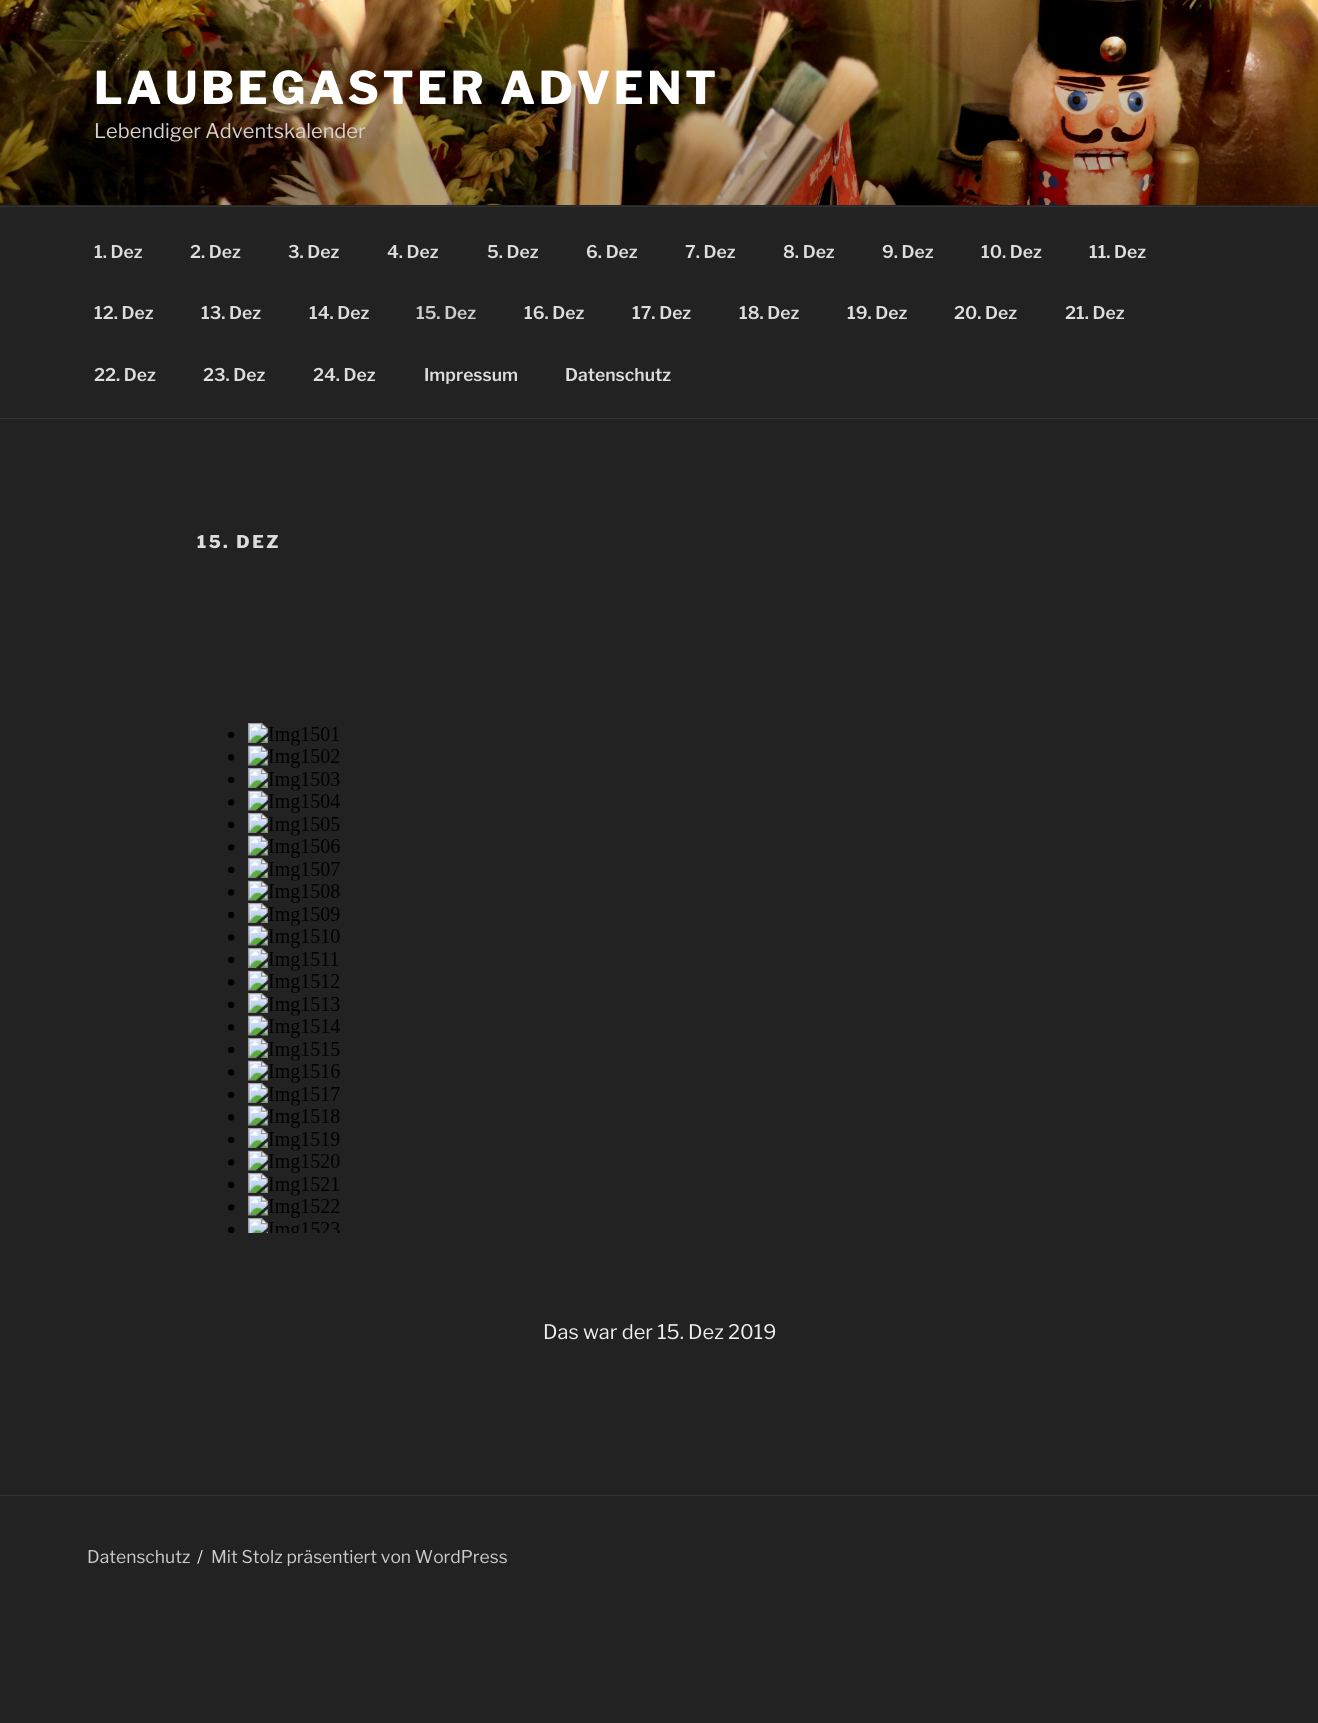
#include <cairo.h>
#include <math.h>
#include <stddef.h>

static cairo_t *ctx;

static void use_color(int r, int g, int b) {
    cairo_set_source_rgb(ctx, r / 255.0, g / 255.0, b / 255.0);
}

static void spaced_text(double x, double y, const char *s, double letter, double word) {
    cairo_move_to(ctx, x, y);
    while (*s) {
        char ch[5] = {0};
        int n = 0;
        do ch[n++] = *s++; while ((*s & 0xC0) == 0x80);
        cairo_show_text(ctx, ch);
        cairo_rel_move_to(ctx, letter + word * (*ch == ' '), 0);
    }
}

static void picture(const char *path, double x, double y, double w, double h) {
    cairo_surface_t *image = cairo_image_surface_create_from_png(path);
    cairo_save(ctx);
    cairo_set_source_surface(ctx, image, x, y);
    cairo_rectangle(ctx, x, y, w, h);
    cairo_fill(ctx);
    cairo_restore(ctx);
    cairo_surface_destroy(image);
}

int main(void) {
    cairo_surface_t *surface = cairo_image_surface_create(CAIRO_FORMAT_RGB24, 1318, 1723);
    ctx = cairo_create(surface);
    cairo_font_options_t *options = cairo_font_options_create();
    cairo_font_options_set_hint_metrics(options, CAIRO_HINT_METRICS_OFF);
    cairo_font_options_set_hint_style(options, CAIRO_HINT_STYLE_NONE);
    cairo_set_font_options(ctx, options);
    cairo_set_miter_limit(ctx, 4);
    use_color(34, 34, 34);
    cairo_paint(ctx);
    use_color(38, 38, 38);
    cairo_rectangle(ctx, 0, 205, 1318, 1);
    cairo_fill(ctx);
    picture("img1.png", 0, 0, 1318, 205);
    cairo_select_font_face(ctx, "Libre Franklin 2 Thin", CAIRO_FONT_SLANT_NORMAL, CAIRO_FONT_WEIGHT_NORMAL);
    cairo_set_font_size(ctx, 45);
    use_color(255, 255, 255);
    spaced_text(94, 104, "LAUBEGASTER ADVENT", 3.6, 0);
    cairo_select_font_face(ctx, "Libre Franklin Thin", CAIRO_FONT_SLANT_NORMAL, CAIRO_FONT_WEIGHT_NORMAL);
    cairo_set_font_size(ctx, 20);
    use_color(214, 210, 207);
    cairo_move_to(ctx, 94, 138);
    cairo_show_text(ctx, "Lebendiger Adventskalender");
    use_color(51, 51, 51);
    cairo_rectangle(ctx, 0, 206, 1318, 1);
    cairo_fill(ctx);
    cairo_rectangle(ctx, 0, 418, 1318, 1);
    cairo_fill(ctx);
    cairo_select_font_face(ctx, "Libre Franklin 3 Thin", CAIRO_FONT_SLANT_NORMAL, CAIRO_FONT_WEIGHT_NORMAL);
    cairo_set_font_size(ctx, 17.5);
    use_color(221, 221, 221);
    cairo_move_to(ctx, 94, 258);
    cairo_show_text(ctx, "1. Dez");
    cairo_move_to(ctx, 190, 258);
    cairo_show_text(ctx, "2. Dez");
    cairo_move_to(ctx, 288, 258);
    cairo_show_text(ctx, "3. Dez");
    cairo_move_to(ctx, 387, 258);
    cairo_show_text(ctx, "4. Dez");
    cairo_move_to(ctx, 487, 258);
    cairo_show_text(ctx, "5. Dez");
    cairo_move_to(ctx, 586, 258);
    cairo_show_text(ctx, "6. Dez");
    cairo_move_to(ctx, 685, 258);
    cairo_show_text(ctx, "7. Dez");
    cairo_move_to(ctx, 783, 258);
    cairo_show_text(ctx, "8. Dez");
    cairo_move_to(ctx, 882, 258);
    cairo_show_text(ctx, "9. Dez");
    cairo_move_to(ctx, 981, 258);
    cairo_show_text(ctx, "10. Dez");
    cairo_move_to(ctx, 1089, 258);
    cairo_show_text(ctx, "11. Dez");
    cairo_move_to(ctx, 94, 319);
    cairo_show_text(ctx, "12. Dez");
    cairo_move_to(ctx, 201, 319);
    cairo_show_text(ctx, "13. Dez");
    cairo_move_to(ctx, 309, 319);
    cairo_show_text(ctx, "14. Dez");
    use_color(204, 204, 204);
    cairo_move_to(ctx, 416, 319);
    cairo_show_text(ctx, "15. Dez");
    use_color(221, 221, 221);
    cairo_move_to(ctx, 524, 319);
    cairo_show_text(ctx, "16. Dez");
    cairo_move_to(ctx, 632, 319);
    cairo_show_text(ctx, "17. Dez");
    cairo_move_to(ctx, 739, 319);
    cairo_show_text(ctx, "18. Dez");
    cairo_move_to(ctx, 847, 319);
    cairo_show_text(ctx, "19. Dez");
    cairo_move_to(ctx, 954, 319);
    cairo_show_text(ctx, "20. Dez");
    cairo_move_to(ctx, 1065, 319);
    cairo_show_text(ctx, "21. Dez");
    cairo_move_to(ctx, 94, 381);
    cairo_show_text(ctx, "22. Dez");
    cairo_move_to(ctx, 203, 381);
    cairo_show_text(ctx, "23. Dez");
    cairo_move_to(ctx, 313, 381);
    cairo_show_text(ctx, "24. Dez");
    cairo_move_to(ctx, 424, 381);
    cairo_show_text(ctx, "Impressum");
    cairo_move_to(ctx, 565, 381);
    cairo_show_text(ctx, "Datenschutz");
    cairo_select_font_face(ctx, "Libre Franklin 2 Thin", CAIRO_FONT_SLANT_NORMAL, CAIRO_FONT_WEIGHT_NORMAL);
    spaced_text(197, 548, "15. DEZ", 2.5, 0);
    picture("img2.png", 228, 723, 112, 510);
    cairo_select_font_face(ctx, "Libre Franklin Thin", CAIRO_FONT_SLANT_NORMAL, CAIRO_FONT_WEIGHT_NORMAL);
    cairo_set_font_size(ctx, 20);
    use_color(238, 238, 238);
    cairo_move_to(ctx, 543, 1339);
    cairo_show_text(ctx, "Das war der 15. Dez 2019");
    use_color(51, 51, 51);
    cairo_rectangle(ctx, 0, 1495, 1318, 1);
    cairo_fill(ctx);
    cairo_set_font_size(ctx, 17.5);
    use_color(204, 204, 204);
    cairo_move_to(ctx, 87, 1563);
    cairo_show_text(ctx, "Datenschutz");
    use_color(238, 238, 238);
    cairo_move_to(ctx, 197, 1563);
    cairo_show_text(ctx, "/");
    use_color(204, 204, 204);
    cairo_move_to(ctx, 211, 1563);
    cairo_show_text(ctx, "Mit Stolz präsentiert von WordPress");
    cairo_surface_write_to_png(surface, "result.png");
    cairo_font_options_destroy(options);
    cairo_destroy(ctx);
    cairo_surface_destroy(surface);
    return 0;
}
